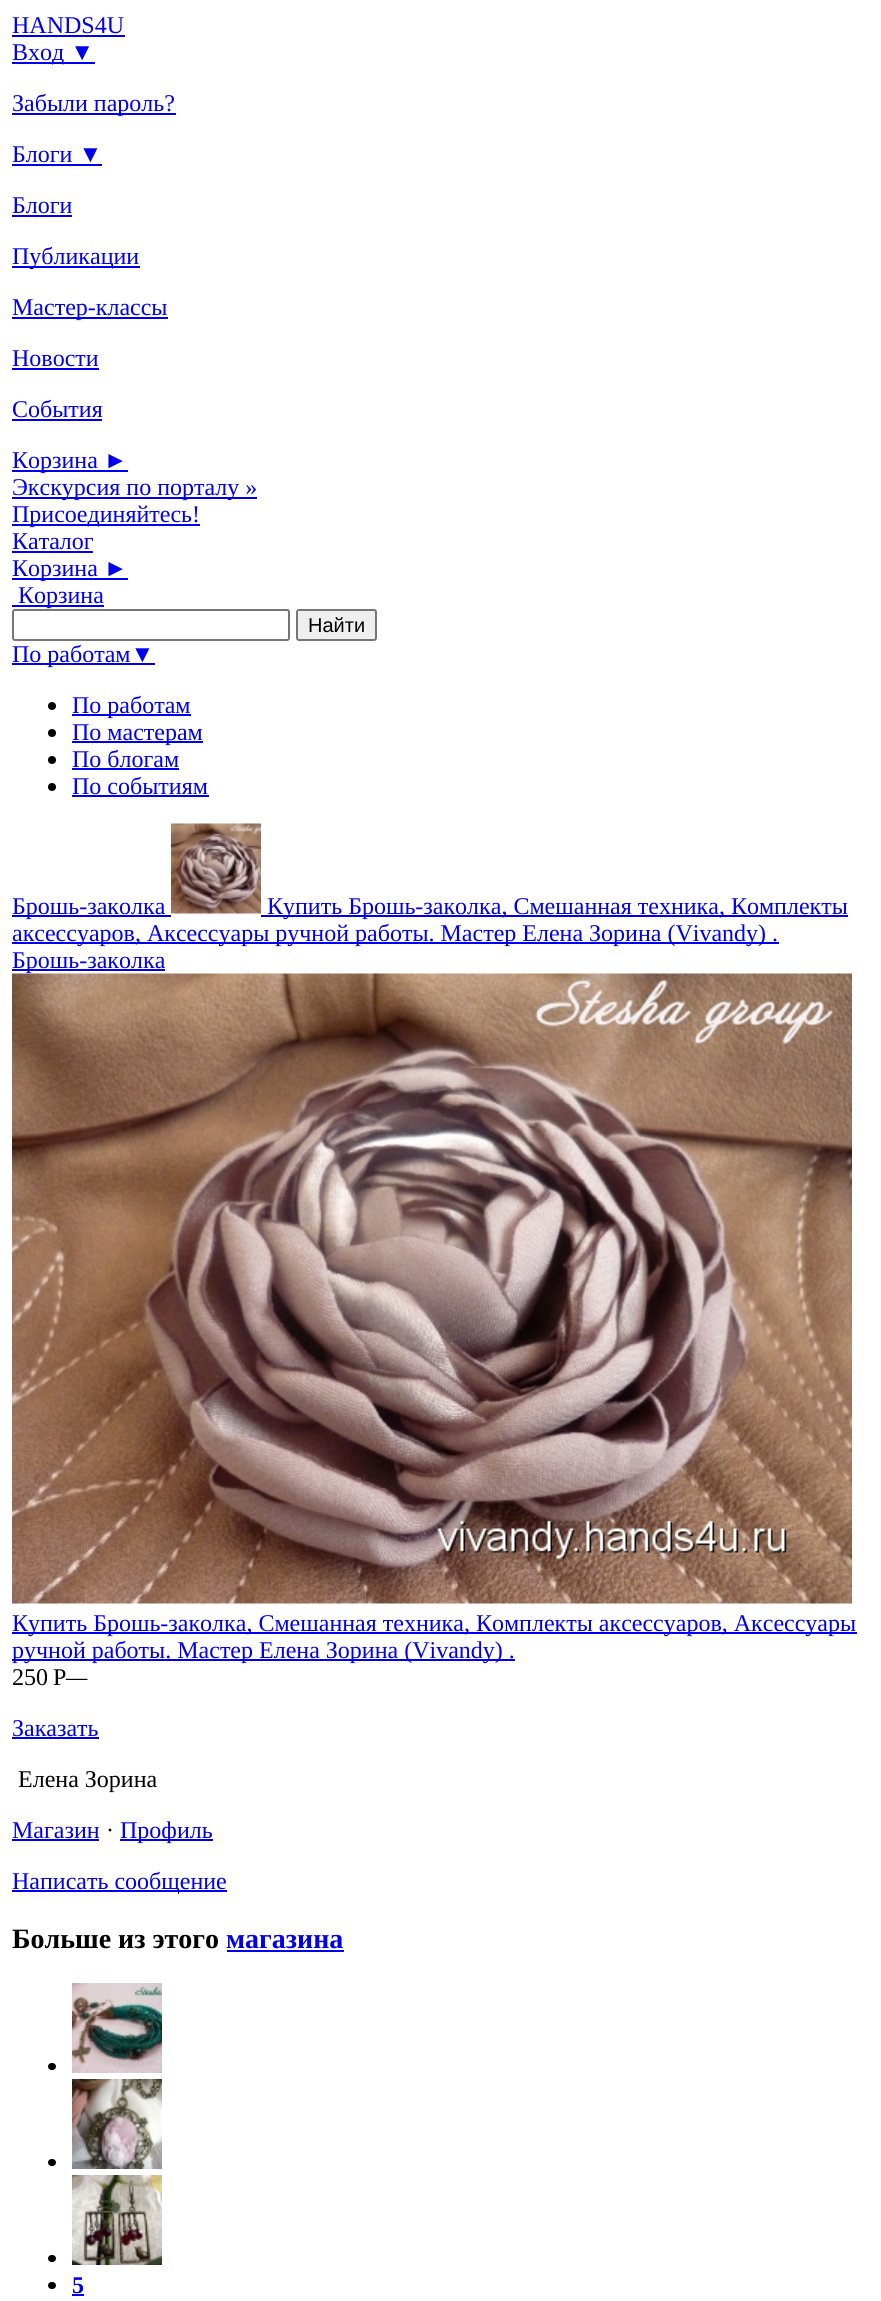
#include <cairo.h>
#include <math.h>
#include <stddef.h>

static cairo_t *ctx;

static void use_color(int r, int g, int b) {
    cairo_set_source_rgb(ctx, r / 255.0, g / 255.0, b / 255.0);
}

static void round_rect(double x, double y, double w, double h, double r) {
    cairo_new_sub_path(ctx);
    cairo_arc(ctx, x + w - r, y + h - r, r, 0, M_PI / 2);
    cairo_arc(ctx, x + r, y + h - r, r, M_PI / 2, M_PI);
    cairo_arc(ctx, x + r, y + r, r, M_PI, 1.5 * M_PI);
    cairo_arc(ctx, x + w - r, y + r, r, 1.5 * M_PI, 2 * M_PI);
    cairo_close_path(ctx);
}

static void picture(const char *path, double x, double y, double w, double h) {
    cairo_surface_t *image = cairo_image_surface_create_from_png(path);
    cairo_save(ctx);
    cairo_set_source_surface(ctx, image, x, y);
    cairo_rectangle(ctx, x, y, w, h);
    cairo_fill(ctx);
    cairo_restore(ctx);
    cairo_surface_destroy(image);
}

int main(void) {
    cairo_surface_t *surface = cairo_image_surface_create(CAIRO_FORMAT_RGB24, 881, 2301);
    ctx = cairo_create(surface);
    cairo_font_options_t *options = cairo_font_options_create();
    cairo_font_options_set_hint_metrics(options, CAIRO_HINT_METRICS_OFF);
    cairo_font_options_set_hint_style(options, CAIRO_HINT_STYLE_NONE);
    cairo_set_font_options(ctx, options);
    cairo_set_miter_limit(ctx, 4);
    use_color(255, 255, 255);
    cairo_paint(ctx);
    cairo_select_font_face(ctx, "Liberation Serif", CAIRO_FONT_SLANT_NORMAL, CAIRO_FONT_WEIGHT_NORMAL);
    cairo_set_font_size(ctx, 24);
    use_color(0, 0, 238);
    cairo_move_to(ctx, 12, 33);
    cairo_show_text(ctx, "HANDS4U");
    cairo_rectangle(ctx, 12, 35, 113, 2);
    cairo_fill(ctx);
    cairo_rectangle(ctx, 12, 62, 83, 2);
    cairo_fill(ctx);
    cairo_move_to(ctx, 12, 60);
    cairo_show_text(ctx, "Вход ▼");
    cairo_rectangle(ctx, 12, 113, 164, 2);
    cairo_fill(ctx);
    cairo_move_to(ctx, 12, 111);
    cairo_show_text(ctx, "Забыли пароль?");
    cairo_move_to(ctx, 12, 162);
    cairo_show_text(ctx, "Блоги ▼");
    cairo_rectangle(ctx, 12, 164, 90, 2);
    cairo_fill(ctx);
    cairo_move_to(ctx, 12, 213);
    cairo_show_text(ctx, "Блоги");
    cairo_rectangle(ctx, 12, 215, 60, 2);
    cairo_fill(ctx);
    cairo_rectangle(ctx, 12, 266, 128, 2);
    cairo_fill(ctx);
    cairo_move_to(ctx, 12, 264);
    cairo_show_text(ctx, "Публикации");
    cairo_rectangle(ctx, 12, 317, 156, 2);
    cairo_fill(ctx);
    cairo_move_to(ctx, 12, 315);
    cairo_show_text(ctx, "Мастер-классы");
    cairo_move_to(ctx, 12, 366);
    cairo_show_text(ctx, "Новости");
    cairo_rectangle(ctx, 12, 368, 87, 2);
    cairo_fill(ctx);
    cairo_move_to(ctx, 12, 417);
    cairo_show_text(ctx, "События");
    cairo_rectangle(ctx, 12, 419, 90, 2);
    cairo_fill(ctx);
    cairo_rectangle(ctx, 12, 470, 116, 2);
    cairo_fill(ctx);
    cairo_move_to(ctx, 12, 468);
    cairo_show_text(ctx, "Корзина ►");
    cairo_rectangle(ctx, 12, 497, 245, 2);
    cairo_fill(ctx);
    cairo_move_to(ctx, 12, 495);
    cairo_show_text(ctx, "Экскурсия по порталу »");
    cairo_rectangle(ctx, 12, 524, 188, 2);
    cairo_fill(ctx);
    cairo_move_to(ctx, 12, 522);
    cairo_show_text(ctx, "Присоединяйтесь!");
    cairo_move_to(ctx, 12, 549);
    cairo_show_text(ctx, "Каталог");
    cairo_rectangle(ctx, 12, 551, 81, 2);
    cairo_fill(ctx);
    cairo_rectangle(ctx, 12, 578, 116, 2);
    cairo_fill(ctx);
    cairo_move_to(ctx, 12, 576);
    cairo_show_text(ctx, "Корзина ►");
    cairo_rectangle(ctx, 12, 605, 92, 2);
    cairo_fill(ctx);
    cairo_move_to(ctx, 18, 603);
    cairo_show_text(ctx, "Корзина");
    round_rect(13, 610, 276, 30, 2);
    use_color(118, 118, 118);
    cairo_stroke(ctx);
    use_color(239, 239, 239);
    round_rect(297, 610, 79, 30, 2);
    cairo_fill_preserve(ctx);
    use_color(118, 118, 118);
    cairo_stroke(ctx);
    cairo_select_font_face(ctx, "Liberation Sans", CAIRO_FONT_SLANT_NORMAL, CAIRO_FONT_WEIGHT_NORMAL);
    cairo_set_font_size(ctx, 20);
    use_color(0, 0, 0);
    cairo_move_to(ctx, 308, 632);
    cairo_show_text(ctx, "Найти");
    use_color(0, 0, 238);
    cairo_rectangle(ctx, 12, 663, 143, 2);
    cairo_fill(ctx);
    cairo_select_font_face(ctx, "Liberation Serif", CAIRO_FONT_SLANT_NORMAL, CAIRO_FONT_WEIGHT_NORMAL);
    cairo_set_font_size(ctx, 24);
    cairo_move_to(ctx, 12, 662);
    cairo_show_text(ctx, "По работам▼");
    use_color(0, 0, 0);
    cairo_new_path(ctx);
    cairo_arc(ctx, 52, 706, 4, 0, 2 * M_PI);
    cairo_fill(ctx);
    use_color(0, 0, 238);
    cairo_rectangle(ctx, 72, 714, 119, 2);
    cairo_fill(ctx);
    cairo_move_to(ctx, 72, 713);
    cairo_show_text(ctx, "По работам");
    use_color(0, 0, 0);
    cairo_new_path(ctx);
    cairo_arc(ctx, 52, 733, 4, 0, 2 * M_PI);
    cairo_fill(ctx);
    use_color(0, 0, 238);
    cairo_rectangle(ctx, 72, 741, 131, 2);
    cairo_fill(ctx);
    cairo_move_to(ctx, 72, 740);
    cairo_show_text(ctx, "По мастерам");
    use_color(0, 0, 0);
    cairo_new_path(ctx);
    cairo_arc(ctx, 52, 760, 4, 0, 2 * M_PI);
    cairo_fill(ctx);
    use_color(0, 0, 238);
    cairo_move_to(ctx, 72, 767);
    cairo_show_text(ctx, "По блогам");
    cairo_rectangle(ctx, 72, 768, 107, 2);
    cairo_fill(ctx);
    use_color(0, 0, 0);
    cairo_arc(ctx, 52, 787, 4, 0, 2 * M_PI);
    cairo_fill(ctx);
    use_color(0, 0, 238);
    cairo_move_to(ctx, 72, 794);
    cairo_show_text(ctx, "По событиям");
    cairo_rectangle(ctx, 72, 795, 137, 2);
    cairo_fill(ctx);
    cairo_rectangle(ctx, 12, 915, 159, 2);
    cairo_fill(ctx);
    cairo_move_to(ctx, 12, 914);
    cairo_show_text(ctx, "Брошь-заколка");
    picture("img1.png", 171, 823, 90, 91);
    cairo_rectangle(ctx, 261, 915, 587, 2);
    cairo_fill(ctx);
    cairo_move_to(ctx, 267, 914);
    cairo_show_text(ctx, "Купить Брошь-заколка, Смешанная техника, Комплекты");
    cairo_rectangle(ctx, 12, 942, 767, 2);
    cairo_fill(ctx);
    cairo_move_to(ctx, 12, 941);
    cairo_show_text(ctx, "аксессуаров, Аксессуары ручной работы. Мастер Елена Зорина (Vivandy) .");
    cairo_rectangle(ctx, 12, 969, 153, 2);
    cairo_fill(ctx);
    cairo_move_to(ctx, 12, 968);
    cairo_show_text(ctx, "Брошь-заколка");
    picture("img2.png", 12, 973, 840, 631);
    cairo_rectangle(ctx, 12, 1632, 845, 2);
    cairo_fill(ctx);
    cairo_move_to(ctx, 12, 1631);
    cairo_show_text(ctx, "Купить Брошь-заколка, Смешанная техника, Комплекты аксессуаров, Аксессуары");
    cairo_rectangle(ctx, 12, 1659, 503, 2);
    cairo_fill(ctx);
    cairo_move_to(ctx, 12, 1658);
    cairo_show_text(ctx, "ручной работы. Мастер Елена Зорина (Vivandy) .");
    use_color(0, 0, 0);
    cairo_move_to(ctx, 12, 1685);
    cairo_show_text(ctx, "250");
    cairo_move_to(ctx, 53, 1685);
    cairo_show_text(ctx, "Р");
    cairo_select_font_face(ctx, "Liberation Serif", CAIRO_FONT_SLANT_ITALIC, CAIRO_FONT_WEIGHT_NORMAL);
    cairo_move_to(ctx, 66, 1685);
    cairo_show_text(ctx, "—");
    cairo_select_font_face(ctx, "Liberation Serif", CAIRO_FONT_SLANT_NORMAL, CAIRO_FONT_WEIGHT_NORMAL);
    use_color(0, 0, 238);
    cairo_move_to(ctx, 12, 1736);
    cairo_show_text(ctx, "Заказать");
    cairo_rectangle(ctx, 12, 1737, 87, 2);
    cairo_fill(ctx);
    use_color(0, 0, 0);
    cairo_move_to(ctx, 18, 1787);
    cairo_show_text(ctx, "Елена Зорина");
    use_color(0, 0, 238);
    cairo_move_to(ctx, 12, 1838);
    cairo_show_text(ctx, "Магазин");
    cairo_rectangle(ctx, 12, 1839, 87, 2);
    cairo_fill(ctx);
    use_color(0, 0, 0);
    cairo_move_to(ctx, 106, 1838);
    cairo_show_text(ctx, "·");
    use_color(0, 0, 238);
    cairo_rectangle(ctx, 120, 1839, 93, 2);
    cairo_fill(ctx);
    cairo_move_to(ctx, 120, 1838);
    cairo_show_text(ctx, "Профиль");
    cairo_rectangle(ctx, 12, 1890, 215, 2);
    cairo_fill(ctx);
    cairo_move_to(ctx, 12, 1889);
    cairo_show_text(ctx, "Написать сообщение");
    cairo_select_font_face(ctx, "Liberation Serif", CAIRO_FONT_SLANT_NORMAL, CAIRO_FONT_WEIGHT_BOLD);
    cairo_set_font_size(ctx, 28);
    use_color(0, 0, 0);
    cairo_move_to(ctx, 12, 1948);
    cairo_show_text(ctx, "Больше из этого");
    use_color(0, 0, 238);
    cairo_move_to(ctx, 226, 1948);
    cairo_show_text(ctx, "магазина");
    cairo_rectangle(ctx, 227, 1950, 117, 2);
    cairo_fill(ctx);
    use_color(0, 0, 0);
    round_rect(48, 2063, 8, 7, 3.5);
    cairo_fill(ctx);
    picture("img3.png", 72, 1983, 90, 90);
    round_rect(48, 2159, 8, 7, 3.5);
    cairo_fill(ctx);
    picture("img4.png", 72, 2079, 90, 90);
    round_rect(48, 2255, 8, 7, 3.5);
    cairo_fill(ctx);
    picture("img5.png", 72, 2175, 90, 90);
    round_rect(48, 2282, 8, 7, 3.5);
    cairo_fill(ctx);
    cairo_set_font_size(ctx, 24);
    use_color(0, 0, 238);
    cairo_move_to(ctx, 72, 2293);
    cairo_show_text(ctx, "5");
    cairo_rectangle(ctx, 72, 2294, 12, 2);
    cairo_fill(ctx);
    cairo_surface_write_to_png(surface, "result.png");
    cairo_font_options_destroy(options);
    cairo_destroy(ctx);
    cairo_surface_destroy(surface);
    return 0;
}
